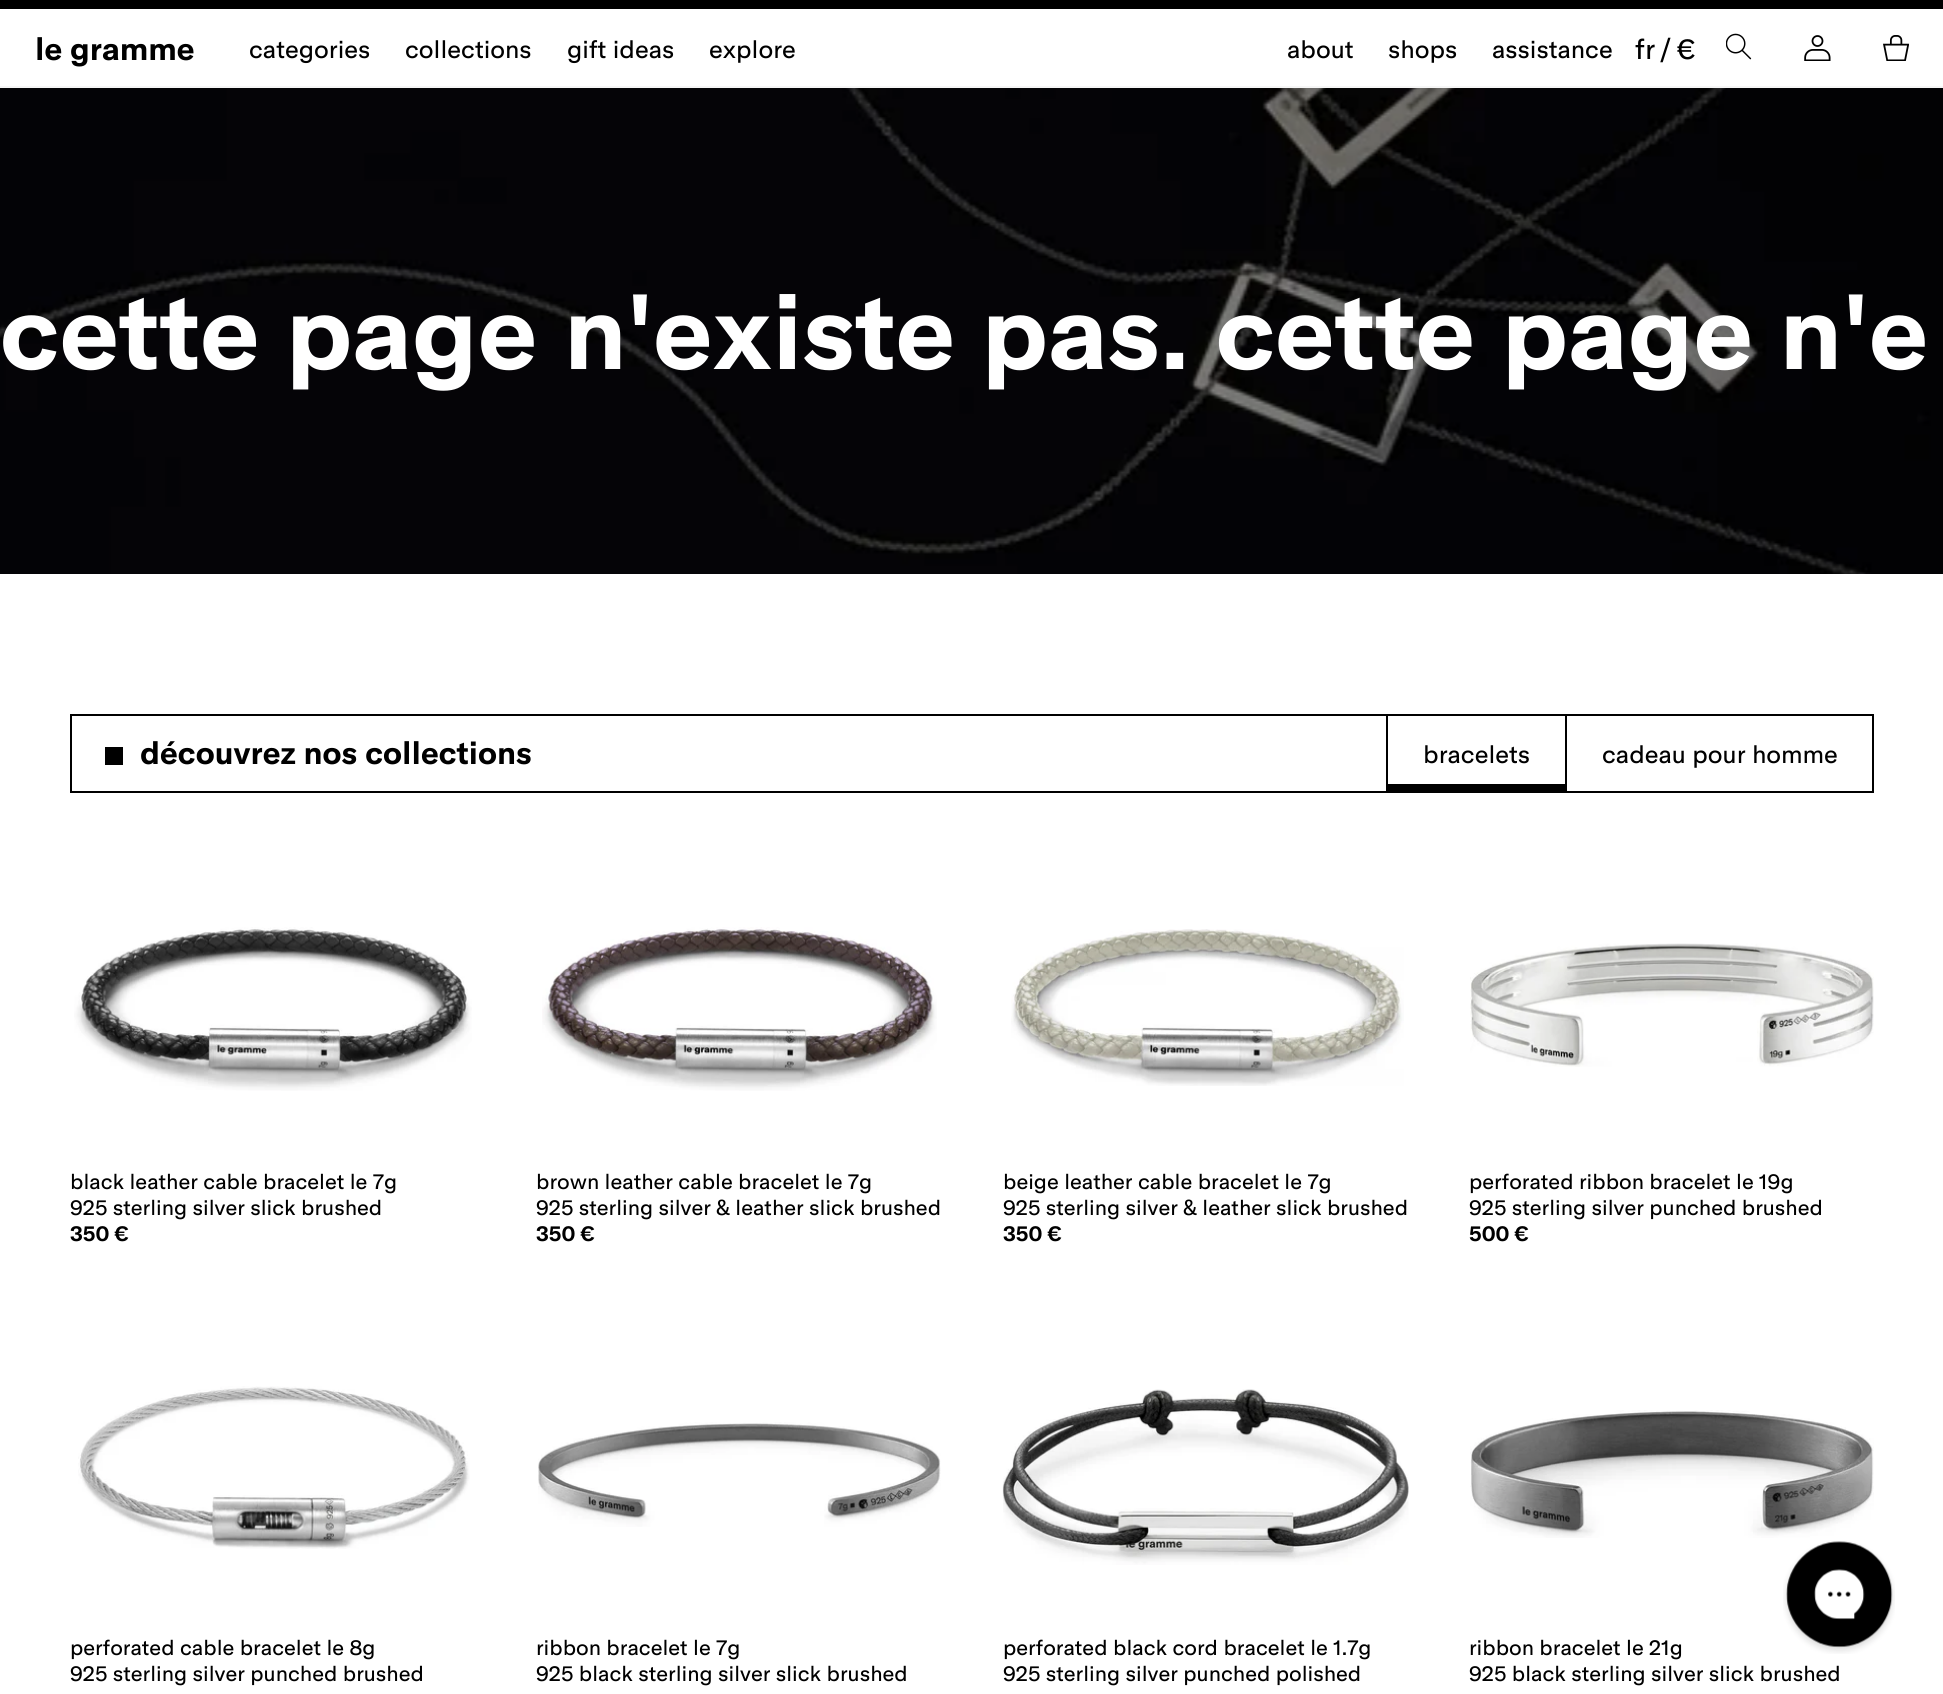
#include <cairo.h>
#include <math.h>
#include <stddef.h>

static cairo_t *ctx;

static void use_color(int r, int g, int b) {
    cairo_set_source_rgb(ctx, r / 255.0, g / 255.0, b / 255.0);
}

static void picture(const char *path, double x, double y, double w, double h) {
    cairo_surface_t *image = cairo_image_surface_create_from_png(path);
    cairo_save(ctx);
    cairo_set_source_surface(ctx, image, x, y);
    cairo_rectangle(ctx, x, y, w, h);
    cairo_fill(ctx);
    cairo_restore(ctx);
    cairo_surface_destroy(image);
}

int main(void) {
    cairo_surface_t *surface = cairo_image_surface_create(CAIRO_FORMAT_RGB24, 1943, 1694);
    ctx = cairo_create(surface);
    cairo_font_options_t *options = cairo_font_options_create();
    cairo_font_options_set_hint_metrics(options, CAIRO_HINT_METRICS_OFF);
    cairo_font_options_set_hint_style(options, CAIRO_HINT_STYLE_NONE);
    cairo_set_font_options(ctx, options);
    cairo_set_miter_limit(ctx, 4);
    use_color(255, 255, 255);
    cairo_paint(ctx);
    use_color(0, 0, 0);
    cairo_rectangle(ctx, 0, 0, 1943, 9);
    cairo_fill(ctx);
    cairo_select_font_face(ctx, "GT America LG", CAIRO_FONT_SLANT_NORMAL, CAIRO_FONT_WEIGHT_BOLD);
    cairo_set_font_size(ctx, 31.5);
    cairo_move_to(ctx, 35, 60);
    cairo_show_text(ctx, "le gramme");
    cairo_select_font_face(ctx, "GT America LG", CAIRO_FONT_SLANT_NORMAL, CAIRO_FONT_WEIGHT_NORMAL);
    cairo_set_font_size(ctx, 24.5);
    cairo_move_to(ctx, 249, 58);
    cairo_show_text(ctx, "categories");
    cairo_move_to(ctx, 405, 58);
    cairo_show_text(ctx, "collections");
    cairo_move_to(ctx, 567, 58);
    cairo_show_text(ctx, "gift ideas");
    cairo_move_to(ctx, 709, 58);
    cairo_show_text(ctx, "explore");
    cairo_move_to(ctx, 1287, 58);
    cairo_show_text(ctx, "about");
    cairo_move_to(ctx, 1388, 58);
    cairo_show_text(ctx, "shops");
    cairo_move_to(ctx, 1492, 58);
    cairo_show_text(ctx, "assistance");
    cairo_set_font_size(ctx, 28);
    cairo_move_to(ctx, 1635, 59);
    cairo_show_text(ctx, "fr");
    cairo_move_to(ctx, 1659, 59);
    cairo_show_text(ctx, "/");
    cairo_move_to(ctx, 1677, 59);
    cairo_show_text(ctx, "€");
    picture("img1.png", 1726, 33, 26, 27);
    picture("img2.png", 1804, 35, 27, 26);
    picture("img3.png", 1883, 35, 26, 26);
    use_color(246, 246, 246);
    cairo_rectangle(ctx, 0, 86, 1943, 2);
    cairo_fill(ctx);
    picture("img4.png", 0, 88, 1943, 486);
    cairo_select_font_face(ctx, "GT America LG", CAIRO_FONT_SLANT_NORMAL, CAIRO_FONT_WEIGHT_BOLD);
    cairo_set_font_size(ctx, 105);
    use_color(255, 255, 255);
    cairo_move_to(ctx, 0, 369);
    cairo_show_text(ctx, "cette page n'existe pas. cette page n'e");
    cairo_rectangle(ctx, 71, 715, 1802, 77);
    use_color(0, 0, 0);
    cairo_stroke(ctx);
    cairo_rectangle(ctx, 105, 747, 18, 18);
    cairo_fill(ctx);
    cairo_set_font_size(ctx, 31.5);
    cairo_move_to(ctx, 140, 764);
    cairo_show_text(ctx, "découvrez nos collections");
    cairo_rectangle(ctx, 1386, 716, 2, 75);
    cairo_fill(ctx);
    cairo_select_font_face(ctx, "GT America LG", CAIRO_FONT_SLANT_NORMAL, CAIRO_FONT_WEIGHT_NORMAL);
    cairo_set_font_size(ctx, 24.5);
    cairo_move_to(ctx, 1423, 763);
    cairo_show_text(ctx, "bracelets");
    cairo_rectangle(ctx, 1388, 784, 177, 7);
    cairo_fill(ctx);
    cairo_rectangle(ctx, 1565, 716, 2, 75);
    cairo_fill(ctx);
    cairo_move_to(ctx, 1602, 763);
    cairo_show_text(ctx, "cadeau pour homme");
    picture("img5.png", 74, 927, 398, 164);
    cairo_set_font_size(ctx, 21);
    cairo_move_to(ctx, 70, 1189);
    cairo_show_text(ctx, "black leather cable bracelet le 7g");
    cairo_move_to(ctx, 70, 1215);
    cairo_show_text(ctx, "925 sterling silver slick brushed");
    cairo_select_font_face(ctx, "GT America LG", CAIRO_FONT_SLANT_NORMAL, CAIRO_FONT_WEIGHT_BOLD);
    cairo_move_to(ctx, 70, 1241);
    cairo_show_text(ctx, "350 €");
    picture("img6.png", 542, 927, 395, 164);
    cairo_select_font_face(ctx, "GT America LG", CAIRO_FONT_SLANT_NORMAL, CAIRO_FONT_WEIGHT_NORMAL);
    cairo_move_to(ctx, 536, 1189);
    cairo_show_text(ctx, "brown leather cable bracelet le 7g");
    cairo_move_to(ctx, 536, 1215);
    cairo_show_text(ctx, "925 sterling silver & leather slick brushed");
    cairo_select_font_face(ctx, "GT America LG", CAIRO_FONT_SLANT_NORMAL, CAIRO_FONT_WEIGHT_BOLD);
    cairo_move_to(ctx, 536, 1241);
    cairo_show_text(ctx, "350 €");
    picture("img7.png", 1011, 929, 393, 157);
    cairo_select_font_face(ctx, "GT America LG", CAIRO_FONT_SLANT_NORMAL, CAIRO_FONT_WEIGHT_NORMAL);
    cairo_move_to(ctx, 1003, 1189);
    cairo_show_text(ctx, "beige leather cable bracelet le 7g");
    cairo_move_to(ctx, 1003, 1215);
    cairo_show_text(ctx, "925 sterling silver & leather slick brushed");
    cairo_select_font_face(ctx, "GT America LG", CAIRO_FONT_SLANT_NORMAL, CAIRO_FONT_WEIGHT_BOLD);
    cairo_move_to(ctx, 1003, 1241);
    cairo_show_text(ctx, "350 €");
    picture("img8.png", 1470, 943, 404, 124);
    cairo_select_font_face(ctx, "GT America LG", CAIRO_FONT_SLANT_NORMAL, CAIRO_FONT_WEIGHT_NORMAL);
    cairo_move_to(ctx, 1469, 1189);
    cairo_show_text(ctx, "perforated ribbon bracelet le 19g");
    cairo_move_to(ctx, 1469, 1215);
    cairo_show_text(ctx, "925 sterling silver punched brushed");
    cairo_select_font_face(ctx, "GT America LG", CAIRO_FONT_SLANT_NORMAL, CAIRO_FONT_WEIGHT_BOLD);
    cairo_move_to(ctx, 1469, 1241);
    cairo_show_text(ctx, "500 €");
    picture("img9.png", 78, 1386, 392, 163);
    cairo_select_font_face(ctx, "GT America LG", CAIRO_FONT_SLANT_NORMAL, CAIRO_FONT_WEIGHT_NORMAL);
    cairo_move_to(ctx, 70, 1655);
    cairo_show_text(ctx, "perforated cable bracelet le 8g");
    cairo_move_to(ctx, 70, 1681);
    cairo_show_text(ctx, "925 sterling silver punched brushed");
    picture("img10.png", 538, 1422, 403, 105);
    cairo_move_to(ctx, 536, 1655);
    cairo_show_text(ctx, "ribbon bracelet le 7g");
    cairo_move_to(ctx, 536, 1681);
    cairo_show_text(ctx, "925 black sterling silver slick brushed");
    picture("img11.png", 1002, 1389, 407, 176);
    cairo_move_to(ctx, 1003, 1655);
    cairo_show_text(ctx, "perforated black cord bracelet le 1.7g");
    cairo_move_to(ctx, 1003, 1681);
    cairo_show_text(ctx, "925 sterling silver punched polished");
    picture("img12.png", 1470, 1410, 404, 128);
    cairo_move_to(ctx, 1469, 1655);
    cairo_show_text(ctx, "ribbon bracelet le 21g");
    cairo_move_to(ctx, 1469, 1681);
    cairo_show_text(ctx, "925 black sterling silver slick brushed");
    picture("img13.png", 1783, 1541, 112, 113);
    cairo_surface_write_to_png(surface, "result.png");
    cairo_font_options_destroy(options);
    cairo_destroy(ctx);
    cairo_surface_destroy(surface);
    return 0;
}
